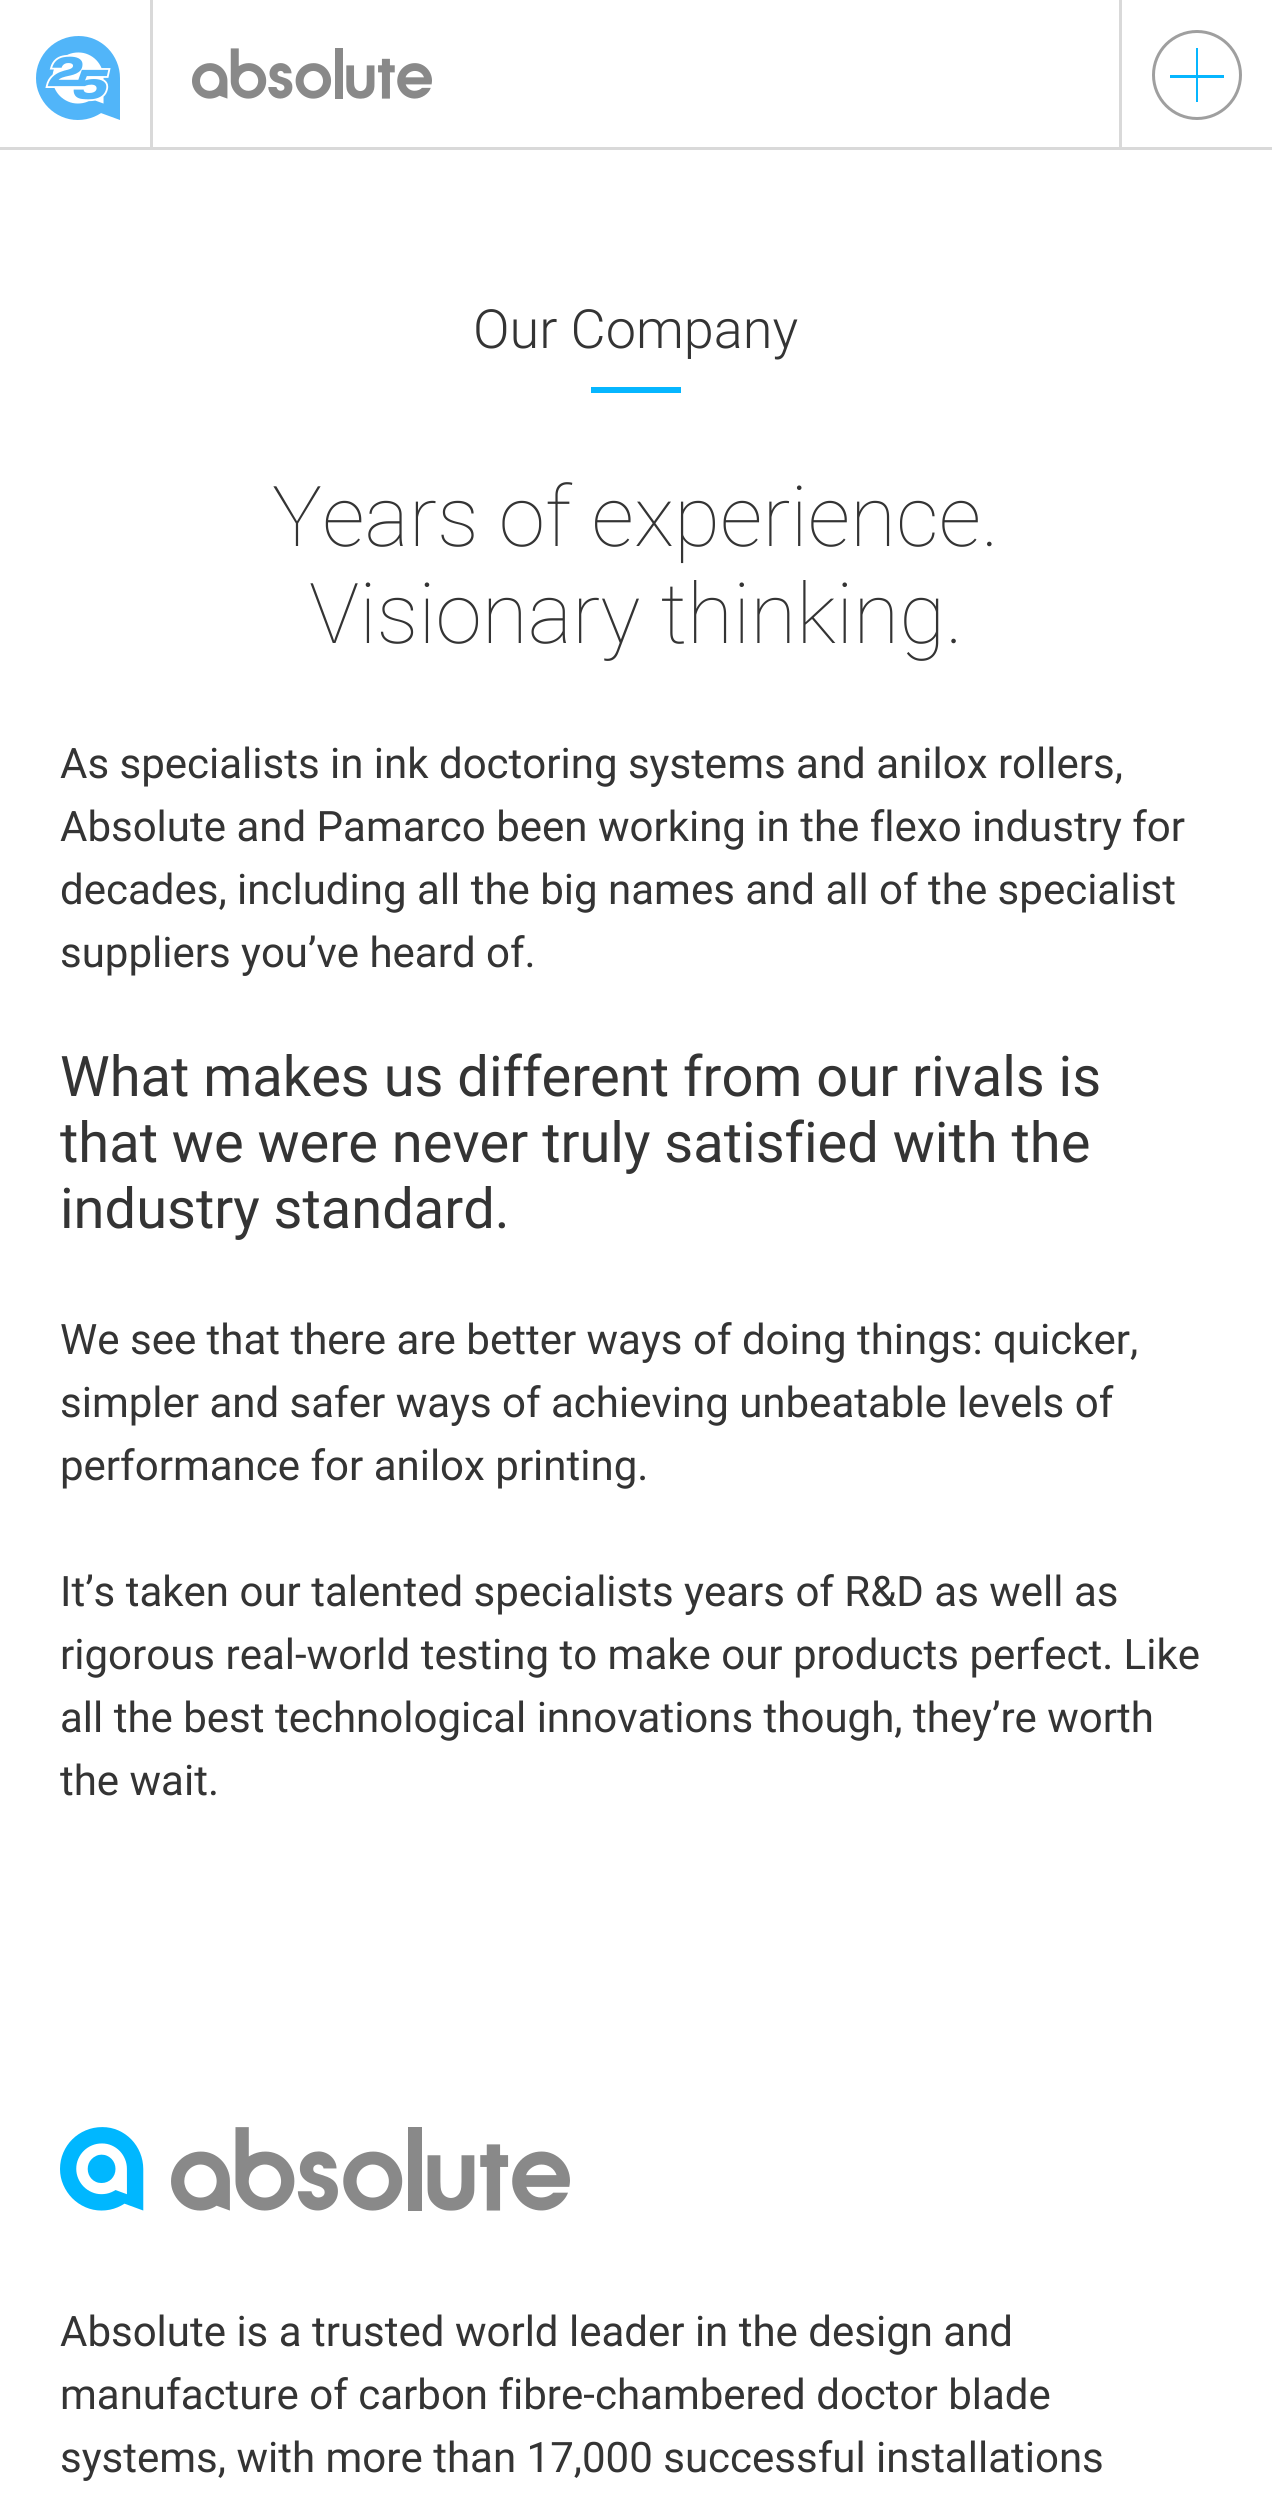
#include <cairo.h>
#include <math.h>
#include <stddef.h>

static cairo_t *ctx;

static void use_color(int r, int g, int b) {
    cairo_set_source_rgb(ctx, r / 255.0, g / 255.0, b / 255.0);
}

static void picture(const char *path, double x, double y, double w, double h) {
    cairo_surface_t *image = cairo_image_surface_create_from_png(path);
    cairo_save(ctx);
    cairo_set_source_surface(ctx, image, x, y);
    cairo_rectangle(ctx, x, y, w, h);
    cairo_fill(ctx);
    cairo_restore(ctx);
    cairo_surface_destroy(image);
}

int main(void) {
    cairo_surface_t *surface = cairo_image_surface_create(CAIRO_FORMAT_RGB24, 1272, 2520);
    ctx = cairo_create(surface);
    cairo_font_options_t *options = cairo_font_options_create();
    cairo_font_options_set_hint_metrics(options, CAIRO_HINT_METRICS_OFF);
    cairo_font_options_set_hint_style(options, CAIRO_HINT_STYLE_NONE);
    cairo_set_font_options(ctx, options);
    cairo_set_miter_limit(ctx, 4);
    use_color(255, 255, 255);
    cairo_paint(ctx);
    use_color(217, 217, 217);
    cairo_rectangle(ctx, 0, 147, 1272, 3);
    cairo_fill(ctx);
    picture("img1.png", 36, 36, 84, 84);
    cairo_rectangle(ctx, 150, 0, 3, 147);
    cairo_fill(ctx);
    picture("img2.png", 192, 48, 240, 51);
    cairo_rectangle(ctx, 1119, 0, 3, 147);
    cairo_fill(ctx);
    cairo_arc(ctx, 1197, 75, 43.5, 0, 2 * M_PI);
    use_color(159, 159, 159);
    cairo_set_line_width(ctx, 3);
    cairo_stroke(ctx);
    use_color(6, 182, 255);
    cairo_rectangle(ctx, 1170, 75, 54, 3);
    cairo_fill(ctx);
    cairo_rectangle(ctx, 1196, 48, 2, 54);
    cairo_fill(ctx);
    cairo_select_font_face(ctx, "Roboto Light", CAIRO_FONT_SLANT_NORMAL, CAIRO_FONT_WEIGHT_NORMAL);
    cairo_set_font_size(ctx, 54);
    use_color(52, 52, 52);
    cairo_move_to(ctx, 473, 348);
    cairo_show_text(ctx, "Our Company");
    use_color(6, 182, 255);
    cairo_rectangle(ctx, 591, 387, 90, 6);
    cairo_fill(ctx);
    cairo_select_font_face(ctx, "Roboto Thin", CAIRO_FONT_SLANT_NORMAL, CAIRO_FONT_WEIGHT_NORMAL);
    cairo_set_font_size(ctx, 84);
    use_color(52, 52, 52);
    cairo_move_to(ctx, 272, 546);
    cairo_show_text(ctx, "Years of experience.");
    cairo_move_to(ctx, 309, 643);
    cairo_show_text(ctx, "Visionary thinking.");
    cairo_select_font_face(ctx, "Roboto", CAIRO_FONT_SLANT_NORMAL, CAIRO_FONT_WEIGHT_NORMAL);
    cairo_set_font_size(ctx, 42);
    cairo_move_to(ctx, 60, 778);
    cairo_show_text(ctx, "As specialists in ink doctoring systems and anilox rollers,");
    cairo_move_to(ctx, 60, 841);
    cairo_show_text(ctx, "Absolute and Pamarco been working in the flexo industry for");
    cairo_move_to(ctx, 60, 904);
    cairo_show_text(ctx, "decades, including all the big names and all of the specialist");
    cairo_move_to(ctx, 60, 967);
    cairo_show_text(ctx, "suppliers you’ve heard of.");
    cairo_set_font_size(ctx, 56);
    cairo_move_to(ctx, 60, 1096);
    cairo_show_text(ctx, "What makes us different from our rivals is");
    cairo_move_to(ctx, 60, 1162);
    cairo_show_text(ctx, "that we were never truly satisfied with the");
    cairo_move_to(ctx, 60, 1228);
    cairo_show_text(ctx, "industry standard.");
    cairo_set_font_size(ctx, 42);
    cairo_move_to(ctx, 60, 1354);
    cairo_show_text(ctx, "We see that there are better ways of doing things: quicker,");
    cairo_move_to(ctx, 60, 1417);
    cairo_show_text(ctx, "simpler and safer ways of achieving unbeatable levels of");
    cairo_move_to(ctx, 60, 1480);
    cairo_show_text(ctx, "performance for anilox printing.");
    cairo_move_to(ctx, 60, 1606);
    cairo_show_text(ctx, "It’s taken our talented specialists years of R&D as well as");
    cairo_move_to(ctx, 60, 1669);
    cairo_show_text(ctx, "rigorous real-world testing to make our products perfect. Like");
    cairo_move_to(ctx, 60, 1732);
    cairo_show_text(ctx, "all the best technological innovations though, they’re worth");
    cairo_move_to(ctx, 60, 1795);
    cairo_show_text(ctx, "the wait.");
    picture("img3.png", 60, 2127, 510, 84);
    cairo_move_to(ctx, 60, 2346);
    cairo_show_text(ctx, "Absolute is a trusted world leader in the design and");
    cairo_move_to(ctx, 60, 2409);
    cairo_show_text(ctx, "manufacture of carbon fibre-chambered doctor blade");
    cairo_move_to(ctx, 60, 2472);
    cairo_show_text(ctx, "systems, with more than 17,000 successful installations");
    cairo_surface_write_to_png(surface, "result.png");
    cairo_font_options_destroy(options);
    cairo_destroy(ctx);
    cairo_surface_destroy(surface);
    return 0;
}
